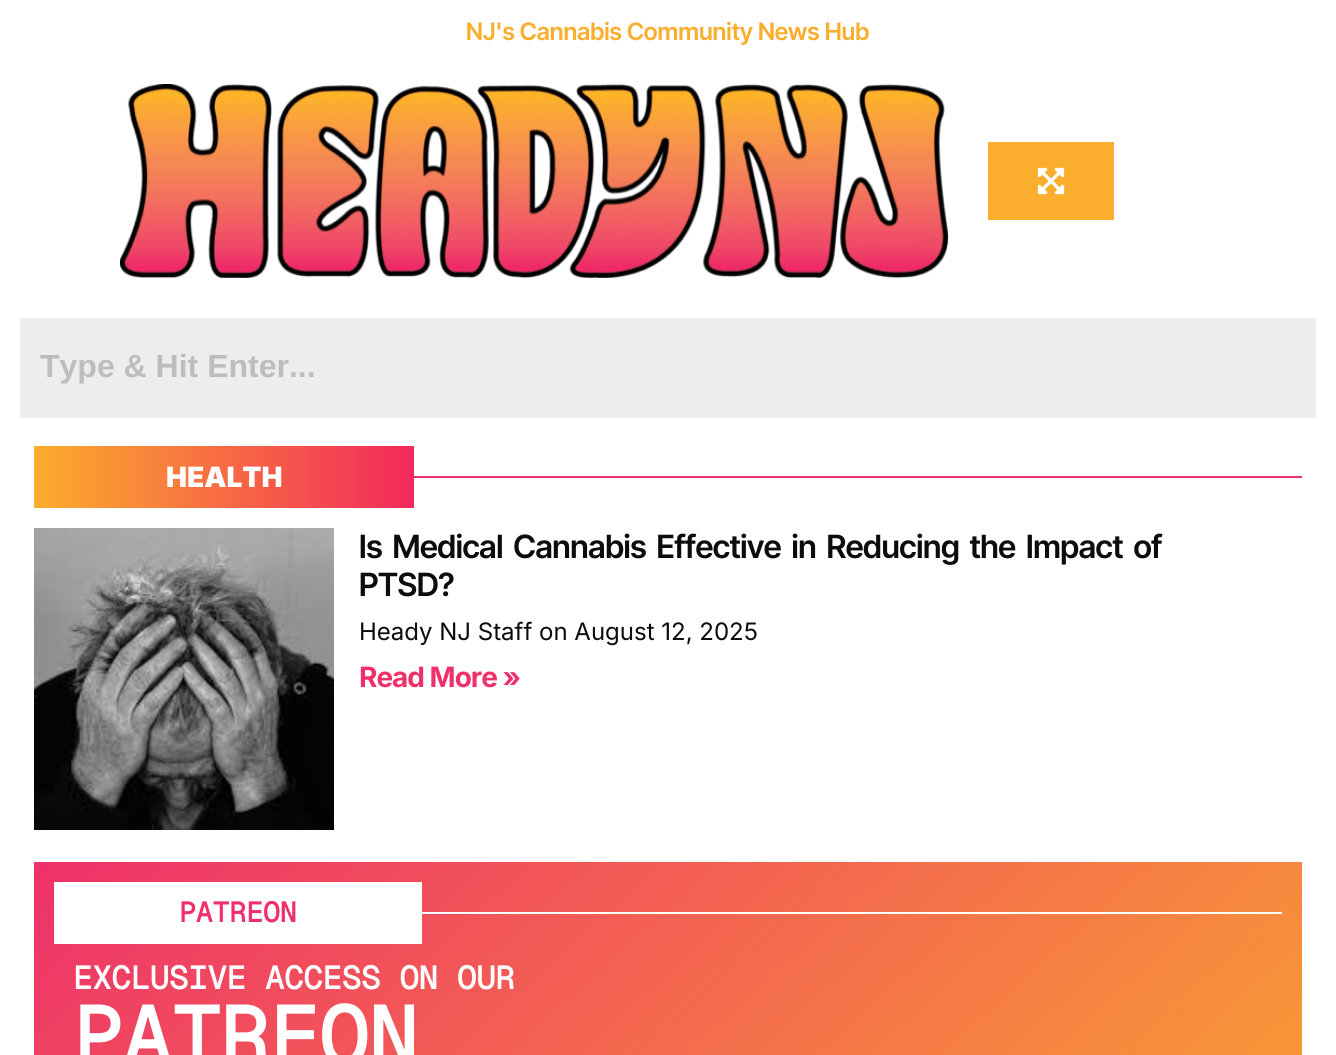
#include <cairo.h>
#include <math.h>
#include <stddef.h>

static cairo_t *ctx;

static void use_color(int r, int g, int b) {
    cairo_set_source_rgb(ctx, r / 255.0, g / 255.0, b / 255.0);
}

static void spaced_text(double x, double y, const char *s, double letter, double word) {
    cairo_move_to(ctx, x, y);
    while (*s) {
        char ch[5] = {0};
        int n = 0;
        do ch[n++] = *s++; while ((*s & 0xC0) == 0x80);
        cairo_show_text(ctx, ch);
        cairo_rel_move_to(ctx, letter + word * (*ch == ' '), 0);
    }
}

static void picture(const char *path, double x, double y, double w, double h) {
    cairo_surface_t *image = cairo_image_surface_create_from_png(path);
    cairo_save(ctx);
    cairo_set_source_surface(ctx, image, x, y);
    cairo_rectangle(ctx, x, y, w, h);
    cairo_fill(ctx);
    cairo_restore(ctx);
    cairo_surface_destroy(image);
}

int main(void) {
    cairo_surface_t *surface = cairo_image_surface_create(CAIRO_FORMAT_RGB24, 1336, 1055);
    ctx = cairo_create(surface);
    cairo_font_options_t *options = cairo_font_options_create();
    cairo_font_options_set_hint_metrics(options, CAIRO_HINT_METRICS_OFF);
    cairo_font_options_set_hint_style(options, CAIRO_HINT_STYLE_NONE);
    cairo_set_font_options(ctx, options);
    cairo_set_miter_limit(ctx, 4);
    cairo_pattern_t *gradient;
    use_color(255, 255, 255);
    cairo_paint(ctx);
    cairo_select_font_face(ctx, "Inter Tight SemiBold", CAIRO_FONT_SLANT_NORMAL, CAIRO_FONT_WEIGHT_NORMAL);
    cairo_set_font_size(ctx, 24);
    use_color(251, 173, 45);
    cairo_move_to(ctx, 466, 40);
    cairo_show_text(ctx, "NJ's Cannabis Community News Hub");
    picture("img1.png", 120, 84, 829, 194);
    cairo_rectangle(ctx, 988, 142, 126, 78);
    cairo_fill(ctx);
    picture("img2.png", 1037, 167, 28, 28);
    use_color(237, 237, 237);
    cairo_rectangle(ctx, 20, 318, 1296, 100);
    cairo_fill(ctx);
    cairo_select_font_face(ctx, "Liberation Sans", CAIRO_FONT_SLANT_NORMAL, CAIRO_FONT_WEIGHT_BOLD);
    cairo_set_font_size(ctx, 32);
    use_color(189, 189, 189);
    cairo_move_to(ctx, 40, 377);
    cairo_show_text(ctx, "Type & Hit Enter...");
    gradient = cairo_pattern_create_linear(34, 477, 414, 477);
    cairo_pattern_add_color_stop_rgba(gradient, 0, 0.984, 0.678, 0.176, 1);
    cairo_pattern_add_color_stop_rgba(gradient, 1, 0.949, 0.161, 0.357, 1);
    cairo_set_source(ctx, gradient);
    cairo_pattern_destroy(gradient);
    cairo_rectangle(ctx, 34, 446, 380, 62);
    cairo_fill(ctx);
    cairo_select_font_face(ctx, "Inter Black", CAIRO_FONT_SLANT_NORMAL, CAIRO_FONT_WEIGHT_NORMAL);
    cairo_set_font_size(ctx, 28);
    use_color(255, 255, 255);
    cairo_move_to(ctx, 166, 487);
    cairo_show_text(ctx, "HEALTH");
    use_color(238, 49, 106);
    cairo_rectangle(ctx, 414, 476, 888, 2);
    cairo_fill(ctx);
    picture("img3.png", 34, 528, 300, 302);
    cairo_select_font_face(ctx, "Inter Tight SemiBold", CAIRO_FONT_SLANT_NORMAL, CAIRO_FONT_WEIGHT_NORMAL);
    cairo_set_font_size(ctx, 32);
    use_color(12, 12, 12);
    spaced_text(359, 558, "Is Medical Cannabis Effective in Reducing the Impact of", -0.4, 4);
    spaced_text(359, 596, "PTSD?", -0.4, 0);
    cairo_select_font_face(ctx, "Inter", CAIRO_FONT_SLANT_NORMAL, CAIRO_FONT_WEIGHT_NORMAL);
    cairo_set_font_size(ctx, 24);
    cairo_move_to(ctx, 359, 640);
    cairo_show_text(ctx, "Heady NJ Staff on August 12, 2025");
    cairo_select_font_face(ctx, "Inter", CAIRO_FONT_SLANT_NORMAL, CAIRO_FONT_WEIGHT_BOLD);
    cairo_set_font_size(ctx, 28);
    use_color(238, 49, 106);
    spaced_text(359, 687, "Read More »", -1, 0);
    gradient = cairo_pattern_create_linear(266, 653, 1070, 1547);
    cairo_pattern_add_color_stop_rgba(gradient, 0, 0.933, 0.192, 0.416, 1);
    cairo_pattern_add_color_stop_rgba(gradient, 1, 0.984, 0.678, 0.176, 1);
    cairo_set_source(ctx, gradient);
    cairo_pattern_destroy(gradient);
    cairo_rectangle(ctx, 34, 862, 1268, 193);
    cairo_fill(ctx);
    use_color(255, 255, 255);
    cairo_rectangle(ctx, 54, 882, 368, 62);
    cairo_fill(ctx);
    cairo_select_font_face(ctx, "Geist Mono", CAIRO_FONT_SLANT_NORMAL, CAIRO_FONT_WEIGHT_BOLD);
    use_color(238, 49, 106);
    cairo_move_to(ctx, 179, 922);
    cairo_show_text(ctx, "PATREON");
    use_color(255, 255, 255);
    cairo_rectangle(ctx, 422, 912, 860, 2);
    cairo_fill(ctx);
    cairo_set_font_size(ctx, 32);
    cairo_move_to(ctx, 73, 989);
    cairo_show_text(ctx, "EXCLUSIVE ACCESS ON OUR");
    cairo_set_font_size(ctx, 82);
    cairo_move_to(ctx, 73, 1065);
    cairo_show_text(ctx, "PATREON");
    cairo_surface_write_to_png(surface, "result.png");
    cairo_font_options_destroy(options);
    cairo_destroy(ctx);
    cairo_surface_destroy(surface);
    return 0;
}
